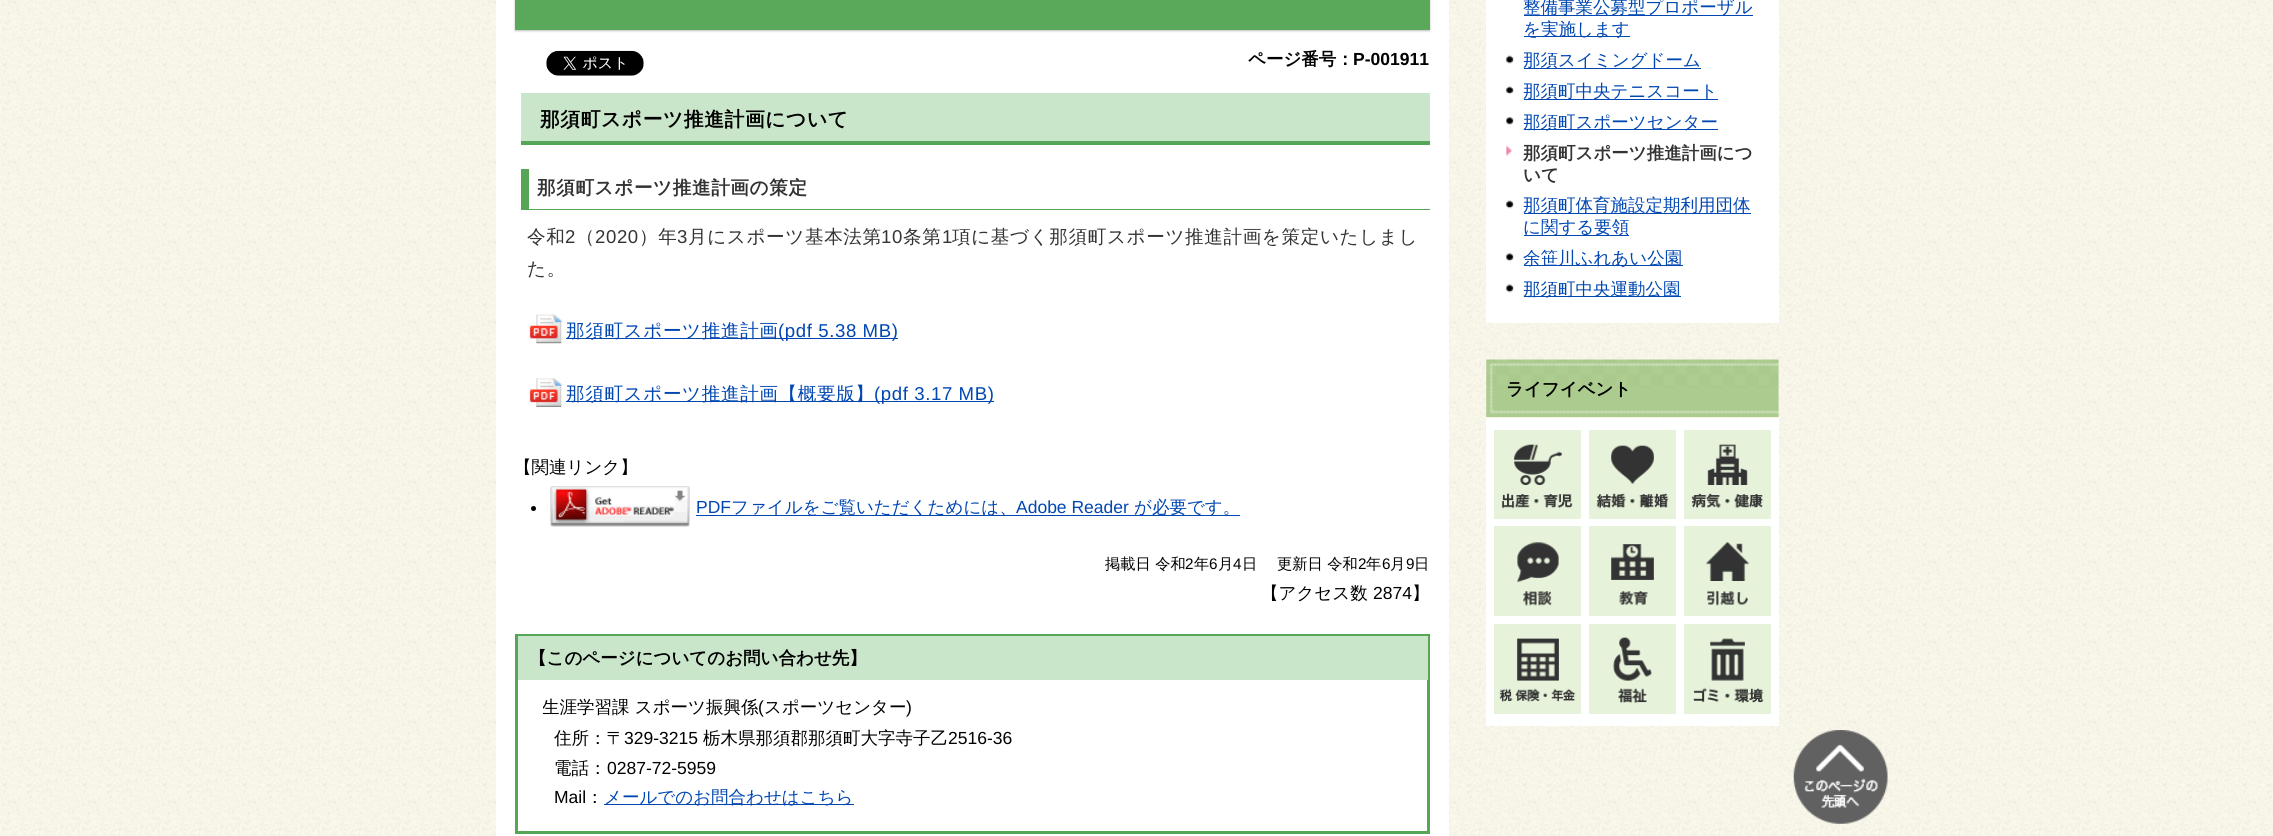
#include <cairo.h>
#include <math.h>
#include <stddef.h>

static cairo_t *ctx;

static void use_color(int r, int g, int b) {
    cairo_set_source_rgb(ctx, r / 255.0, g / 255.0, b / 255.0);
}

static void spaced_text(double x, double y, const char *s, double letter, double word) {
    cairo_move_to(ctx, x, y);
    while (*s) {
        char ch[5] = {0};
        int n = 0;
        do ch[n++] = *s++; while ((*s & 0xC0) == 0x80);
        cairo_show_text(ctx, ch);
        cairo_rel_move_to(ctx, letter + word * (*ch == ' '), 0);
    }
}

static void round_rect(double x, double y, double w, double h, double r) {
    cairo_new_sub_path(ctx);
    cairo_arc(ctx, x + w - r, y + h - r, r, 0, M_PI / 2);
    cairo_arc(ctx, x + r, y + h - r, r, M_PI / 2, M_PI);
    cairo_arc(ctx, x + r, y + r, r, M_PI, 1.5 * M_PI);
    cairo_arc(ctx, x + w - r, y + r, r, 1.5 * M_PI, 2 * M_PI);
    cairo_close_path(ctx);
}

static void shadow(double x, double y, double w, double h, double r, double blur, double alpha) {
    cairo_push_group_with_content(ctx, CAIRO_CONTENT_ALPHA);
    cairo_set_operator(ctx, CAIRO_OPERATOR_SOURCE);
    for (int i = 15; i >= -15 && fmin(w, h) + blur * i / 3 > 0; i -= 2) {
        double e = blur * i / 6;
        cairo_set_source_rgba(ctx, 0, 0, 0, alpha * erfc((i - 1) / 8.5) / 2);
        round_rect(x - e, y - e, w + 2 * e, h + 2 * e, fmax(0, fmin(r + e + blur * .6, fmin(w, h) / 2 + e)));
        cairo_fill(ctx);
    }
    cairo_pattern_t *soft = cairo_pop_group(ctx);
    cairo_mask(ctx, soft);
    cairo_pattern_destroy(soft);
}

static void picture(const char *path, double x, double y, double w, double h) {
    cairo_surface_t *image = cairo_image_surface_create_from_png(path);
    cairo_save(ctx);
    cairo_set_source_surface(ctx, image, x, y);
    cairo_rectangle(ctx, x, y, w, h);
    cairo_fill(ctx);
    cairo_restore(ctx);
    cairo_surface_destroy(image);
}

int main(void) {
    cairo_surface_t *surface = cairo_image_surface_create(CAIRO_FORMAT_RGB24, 2273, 836);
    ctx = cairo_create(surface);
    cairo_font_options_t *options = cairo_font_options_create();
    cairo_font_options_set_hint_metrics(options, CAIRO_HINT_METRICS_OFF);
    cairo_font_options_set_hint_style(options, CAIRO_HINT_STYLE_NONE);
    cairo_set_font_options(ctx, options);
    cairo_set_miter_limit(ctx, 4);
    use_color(255, 255, 255);
    cairo_paint(ctx);
    picture("img1.png", 0, 0, 2273, 836);
    use_color(255, 255, 255);
    cairo_rectangle(ctx, 496, 0, 953, 836);
    cairo_fill(ctx);
    use_color(0, 0, 0);
    shadow(515, -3, 915, 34, 0, 1, 0.25);
    use_color(90, 168, 90);
    cairo_rectangle(ctx, 515, 0, 915, 30);
    cairo_fill(ctx);
    picture("img2.png", 546, 50, 98, 26);
    cairo_select_font_face(ctx, "WenQuanYi Zen Hei", CAIRO_FONT_SLANT_NORMAL, CAIRO_FONT_WEIGHT_BOLD);
    cairo_set_font_size(ctx, 17.5);
    use_color(0, 0, 0);
    cairo_move_to(ctx, 1248, 65);
    cairo_show_text(ctx, "ページ番号：");
    cairo_select_font_face(ctx, "Liberation Sans", CAIRO_FONT_SLANT_NORMAL, CAIRO_FONT_WEIGHT_BOLD);
    cairo_move_to(ctx, 1353, 65);
    cairo_show_text(ctx, "P-001911");
    use_color(202, 230, 202);
    cairo_rectangle(ctx, 521, 93, 909, 48);
    cairo_fill(ctx);
    use_color(87, 165, 87);
    cairo_rectangle(ctx, 521, 141, 909, 4);
    cairo_fill(ctx);
    cairo_select_font_face(ctx, "WenQuanYi Zen Hei", CAIRO_FONT_SLANT_NORMAL, CAIRO_FONT_WEIGHT_BOLD);
    cairo_set_font_size(ctx, 19.75);
    use_color(0, 0, 0);
    spaced_text(540, 126, "那須町スポーツ推進計画について", 0.6, 0);
    use_color(87, 165, 87);
    cairo_rectangle(ctx, 521, 209, 909, 1);
    cairo_fill(ctx);
    cairo_rectangle(ctx, 521, 169, 8, 41);
    cairo_fill(ctx);
    cairo_set_font_size(ctx, 18.6);
    use_color(51, 51, 51);
    spaced_text(537, 194, "那須町スポーツ推進計画の策定", 0.6, 0);
    cairo_select_font_face(ctx, "WenQuanYi Zen Hei Medium", CAIRO_FONT_SLANT_NORMAL, CAIRO_FONT_WEIGHT_NORMAL);
    spaced_text(527, 243, "令和", 0.6, 0);
    cairo_select_font_face(ctx, "Liberation Sans", CAIRO_FONT_SLANT_NORMAL, CAIRO_FONT_WEIGHT_NORMAL);
    spaced_text(565, 243, "2", 0.6, 0);
    cairo_select_font_face(ctx, "WenQuanYi Zen Hei Medium", CAIRO_FONT_SLANT_NORMAL, CAIRO_FONT_WEIGHT_NORMAL);
    spaced_text(576, 243, "（", 0.6, 0);
    cairo_select_font_face(ctx, "Liberation Sans", CAIRO_FONT_SLANT_NORMAL, CAIRO_FONT_WEIGHT_NORMAL);
    spaced_text(595, 243, "2020", 0.6, 0);
    cairo_select_font_face(ctx, "WenQuanYi Zen Hei Medium", CAIRO_FONT_SLANT_NORMAL, CAIRO_FONT_WEIGHT_NORMAL);
    spaced_text(639, 243, "）年", 0.6, 0);
    cairo_select_font_face(ctx, "Liberation Sans", CAIRO_FONT_SLANT_NORMAL, CAIRO_FONT_WEIGHT_NORMAL);
    spaced_text(677, 243, "3", 0.6, 0);
    cairo_select_font_face(ctx, "WenQuanYi Zen Hei Medium", CAIRO_FONT_SLANT_NORMAL, CAIRO_FONT_WEIGHT_NORMAL);
    spaced_text(688, 243, "月にスポーツ基本法第", 0.6, 0);
    cairo_select_font_face(ctx, "Liberation Sans", CAIRO_FONT_SLANT_NORMAL, CAIRO_FONT_WEIGHT_NORMAL);
    spaced_text(881, 243, "10", 0.6, 0);
    cairo_select_font_face(ctx, "WenQuanYi Zen Hei Medium", CAIRO_FONT_SLANT_NORMAL, CAIRO_FONT_WEIGHT_NORMAL);
    spaced_text(903, 243, "条第", 0.6, 0);
    cairo_select_font_face(ctx, "Liberation Sans", CAIRO_FONT_SLANT_NORMAL, CAIRO_FONT_WEIGHT_NORMAL);
    spaced_text(942, 243, "1", 0.6, 0);
    cairo_select_font_face(ctx, "WenQuanYi Zen Hei Medium", CAIRO_FONT_SLANT_NORMAL, CAIRO_FONT_WEIGHT_NORMAL);
    spaced_text(952, 243, "項に基づく那須町スポーツ推進計画を策定いたしまし", 0.6, 0);
    spaced_text(527, 275, "た。", 0.6, 0);
    picture("img3.png", 529, 314, 34, 30);
    use_color(0, 71, 178);
    cairo_rectangle(ctx, 566, 338, 332, 1);
    cairo_fill(ctx);
    spaced_text(566, 337, "那須町スポーツ推進計画", 0.6, 0);
    cairo_select_font_face(ctx, "Liberation Sans", CAIRO_FONT_SLANT_NORMAL, CAIRO_FONT_WEIGHT_NORMAL);
    spaced_text(778, 337, "(pdf 5.38 MB)", 0.6, 0);
    picture("img4.png", 529, 378, 34, 29);
    cairo_rectangle(ctx, 566, 401, 428, 1);
    cairo_fill(ctx);
    cairo_select_font_face(ctx, "WenQuanYi Zen Hei Medium", CAIRO_FONT_SLANT_NORMAL, CAIRO_FONT_WEIGHT_NORMAL);
    spaced_text(566, 400, "那須町スポーツ推進計画【概要版】", 0.6, 0);
    cairo_select_font_face(ctx, "Liberation Sans", CAIRO_FONT_SLANT_NORMAL, CAIRO_FONT_WEIGHT_NORMAL);
    spaced_text(874, 400, "(pdf 3.17 MB)", 0.6, 0);
    cairo_select_font_face(ctx, "WenQuanYi Zen Hei Medium", CAIRO_FONT_SLANT_NORMAL, CAIRO_FONT_WEIGHT_NORMAL);
    cairo_set_font_size(ctx, 17.5);
    use_color(0, 0, 0);
    cairo_move_to(ctx, 514, 473);
    cairo_show_text(ctx, "【関連リンク】");
    cairo_new_path(ctx);
    cairo_arc(ctx, 533.5, 508.5, 2.5, 0, 2 * M_PI);
    cairo_fill(ctx);
    picture("img5.png", 550, 486, 140, 41);
    cairo_select_font_face(ctx, "Liberation Sans", CAIRO_FONT_SLANT_NORMAL, CAIRO_FONT_WEIGHT_NORMAL);
    use_color(0, 71, 178);
    cairo_move_to(ctx, 696, 513);
    cairo_show_text(ctx, "PDF");
    cairo_rectangle(ctx, 696, 515, 544, 1);
    cairo_fill(ctx);
    cairo_select_font_face(ctx, "WenQuanYi Zen Hei Medium", CAIRO_FONT_SLANT_NORMAL, CAIRO_FONT_WEIGHT_NORMAL);
    cairo_move_to(ctx, 731, 513);
    cairo_show_text(ctx, "ファイルをご覧いただくためには、");
    cairo_select_font_face(ctx, "Liberation Sans", CAIRO_FONT_SLANT_NORMAL, CAIRO_FONT_WEIGHT_NORMAL);
    cairo_move_to(ctx, 1016, 513);
    cairo_show_text(ctx, "Adobe Reader");
    cairo_select_font_face(ctx, "WenQuanYi Zen Hei Medium", CAIRO_FONT_SLANT_NORMAL, CAIRO_FONT_WEIGHT_NORMAL);
    cairo_move_to(ctx, 1134, 513);
    cairo_show_text(ctx, "が必要です。");
    cairo_set_font_size(ctx, 15.25);
    use_color(0, 0, 0);
    cairo_move_to(ctx, 1105, 569);
    cairo_show_text(ctx, "掲載日 令和");
    cairo_select_font_face(ctx, "Liberation Sans", CAIRO_FONT_SLANT_NORMAL, CAIRO_FONT_WEIGHT_NORMAL);
    cairo_move_to(ctx, 1185, 569);
    cairo_show_text(ctx, "2");
    cairo_select_font_face(ctx, "WenQuanYi Zen Hei Medium", CAIRO_FONT_SLANT_NORMAL, CAIRO_FONT_WEIGHT_NORMAL);
    cairo_move_to(ctx, 1194, 569);
    cairo_show_text(ctx, "年");
    cairo_select_font_face(ctx, "Liberation Sans", CAIRO_FONT_SLANT_NORMAL, CAIRO_FONT_WEIGHT_NORMAL);
    cairo_move_to(ctx, 1209, 569);
    cairo_show_text(ctx, "6");
    cairo_select_font_face(ctx, "WenQuanYi Zen Hei Medium", CAIRO_FONT_SLANT_NORMAL, CAIRO_FONT_WEIGHT_NORMAL);
    cairo_move_to(ctx, 1218, 569);
    cairo_show_text(ctx, "月");
    cairo_select_font_face(ctx, "Liberation Sans", CAIRO_FONT_SLANT_NORMAL, CAIRO_FONT_WEIGHT_NORMAL);
    cairo_move_to(ctx, 1233, 569);
    cairo_show_text(ctx, "4");
    cairo_select_font_face(ctx, "WenQuanYi Zen Hei Medium", CAIRO_FONT_SLANT_NORMAL, CAIRO_FONT_WEIGHT_NORMAL);
    cairo_move_to(ctx, 1242, 569);
    cairo_show_text(ctx, "日");
    cairo_move_to(ctx, 1277, 569);
    cairo_show_text(ctx, "更新日 令和");
    cairo_select_font_face(ctx, "Liberation Sans", CAIRO_FONT_SLANT_NORMAL, CAIRO_FONT_WEIGHT_NORMAL);
    cairo_move_to(ctx, 1358, 569);
    cairo_show_text(ctx, "2");
    cairo_select_font_face(ctx, "WenQuanYi Zen Hei Medium", CAIRO_FONT_SLANT_NORMAL, CAIRO_FONT_WEIGHT_NORMAL);
    cairo_move_to(ctx, 1366, 569);
    cairo_show_text(ctx, "年");
    cairo_select_font_face(ctx, "Liberation Sans", CAIRO_FONT_SLANT_NORMAL, CAIRO_FONT_WEIGHT_NORMAL);
    cairo_move_to(ctx, 1382, 569);
    cairo_show_text(ctx, "6");
    cairo_select_font_face(ctx, "WenQuanYi Zen Hei Medium", CAIRO_FONT_SLANT_NORMAL, CAIRO_FONT_WEIGHT_NORMAL);
    cairo_move_to(ctx, 1390, 569);
    cairo_show_text(ctx, "月");
    cairo_select_font_face(ctx, "Liberation Sans", CAIRO_FONT_SLANT_NORMAL, CAIRO_FONT_WEIGHT_NORMAL);
    cairo_move_to(ctx, 1406, 569);
    cairo_show_text(ctx, "9");
    cairo_select_font_face(ctx, "WenQuanYi Zen Hei Medium", CAIRO_FONT_SLANT_NORMAL, CAIRO_FONT_WEIGHT_NORMAL);
    cairo_move_to(ctx, 1414, 569);
    cairo_show_text(ctx, "日");
    cairo_set_font_size(ctx, 17.5);
    cairo_move_to(ctx, 1261, 599);
    cairo_show_text(ctx, "【アクセス数");
    cairo_select_font_face(ctx, "Liberation Sans", CAIRO_FONT_SLANT_NORMAL, CAIRO_FONT_WEIGHT_NORMAL);
    cairo_move_to(ctx, 1373, 599);
    cairo_show_text(ctx, "2874");
    cairo_select_font_face(ctx, "WenQuanYi Zen Hei Medium", CAIRO_FONT_SLANT_NORMAL, CAIRO_FONT_WEIGHT_NORMAL);
    cairo_move_to(ctx, 1412, 599);
    cairo_show_text(ctx, "】");
    cairo_rectangle(ctx, 516.5, 635.5, 912, 197);
    use_color(87, 165, 87);
    cairo_set_line_width(ctx, 3);
    cairo_stroke(ctx);
    use_color(202, 230, 202);
    cairo_rectangle(ctx, 518, 636, 910, 44);
    cairo_fill(ctx);
    cairo_select_font_face(ctx, "WenQuanYi Zen Hei", CAIRO_FONT_SLANT_NORMAL, CAIRO_FONT_WEIGHT_BOLD);
    use_color(0, 0, 0);
    cairo_move_to(ctx, 529, 664);
    cairo_show_text(ctx, "【このページについてのお問い合わせ先】");
    cairo_save(ctx);
    cairo_rectangle(ctx, 543, 693, 860, 32);
    cairo_clip(ctx);
    cairo_select_font_face(ctx, "WenQuanYi Zen Hei Medium", CAIRO_FONT_SLANT_NORMAL, CAIRO_FONT_WEIGHT_NORMAL);
    cairo_move_to(ctx, 542, 713);
    cairo_show_text(ctx, "生涯学習課 スポーツ振興係");
    cairo_restore(ctx);
    cairo_select_font_face(ctx, "Liberation Sans", CAIRO_FONT_SLANT_NORMAL, CAIRO_FONT_WEIGHT_NORMAL);
    cairo_move_to(ctx, 758, 713);
    cairo_show_text(ctx, "(");
    cairo_select_font_face(ctx, "WenQuanYi Zen Hei Medium", CAIRO_FONT_SLANT_NORMAL, CAIRO_FONT_WEIGHT_NORMAL);
    cairo_move_to(ctx, 764, 713);
    cairo_show_text(ctx, "スポーツセンター");
    cairo_select_font_face(ctx, "Liberation Sans", CAIRO_FONT_SLANT_NORMAL, CAIRO_FONT_WEIGHT_NORMAL);
    cairo_move_to(ctx, 906, 713);
    cairo_show_text(ctx, ")");
    cairo_select_font_face(ctx, "WenQuanYi Zen Hei Medium", CAIRO_FONT_SLANT_NORMAL, CAIRO_FONT_WEIGHT_NORMAL);
    cairo_move_to(ctx, 554, 744);
    cairo_show_text(ctx, "住所：〒");
    cairo_select_font_face(ctx, "Liberation Sans", CAIRO_FONT_SLANT_NORMAL, CAIRO_FONT_WEIGHT_NORMAL);
    cairo_move_to(ctx, 624, 744);
    cairo_show_text(ctx, "329-3215");
    cairo_select_font_face(ctx, "WenQuanYi Zen Hei Medium", CAIRO_FONT_SLANT_NORMAL, CAIRO_FONT_WEIGHT_NORMAL);
    cairo_move_to(ctx, 703, 744);
    cairo_show_text(ctx, "栃木県那須郡那須町大字寺子乙");
    cairo_select_font_face(ctx, "Liberation Sans", CAIRO_FONT_SLANT_NORMAL, CAIRO_FONT_WEIGHT_NORMAL);
    cairo_move_to(ctx, 948, 744);
    cairo_show_text(ctx, "2516-36");
    cairo_select_font_face(ctx, "WenQuanYi Zen Hei Medium", CAIRO_FONT_SLANT_NORMAL, CAIRO_FONT_WEIGHT_NORMAL);
    cairo_move_to(ctx, 554, 774);
    cairo_show_text(ctx, "電話：");
    cairo_select_font_face(ctx, "Liberation Sans", CAIRO_FONT_SLANT_NORMAL, CAIRO_FONT_WEIGHT_NORMAL);
    cairo_move_to(ctx, 607, 774);
    cairo_show_text(ctx, "0287-72-5959");
    cairo_move_to(ctx, 554, 803);
    cairo_show_text(ctx, "Mail");
    cairo_select_font_face(ctx, "WenQuanYi Zen Hei Medium", CAIRO_FONT_SLANT_NORMAL, CAIRO_FONT_WEIGHT_NORMAL);
    cairo_move_to(ctx, 586, 803);
    cairo_show_text(ctx, "：");
    use_color(0, 71, 178);
    cairo_rectangle(ctx, 604, 804, 250, 1);
    cairo_fill(ctx);
    cairo_move_to(ctx, 604, 803);
    cairo_show_text(ctx, "メールでのお問合わせはこちら");
    use_color(255, 255, 255);
    cairo_rectangle(ctx, 1486, 0, 293, 323);
    cairo_fill(ctx);
    use_color(0, 71, 178);
    cairo_rectangle(ctx, 1524, 15, 229, 1);
    cairo_fill(ctx);
    cairo_move_to(ctx, 1523, 13);
    cairo_show_text(ctx, "整備事業公募型プロポーザル");
    cairo_rectangle(ctx, 1524, 36, 106, 1);
    cairo_fill(ctx);
    cairo_move_to(ctx, 1523, 35);
    cairo_show_text(ctx, "を実施します");
    picture("img6.png", 1506, 55, 8, 9);
    cairo_rectangle(ctx, 1524, 68, 177, 1);
    cairo_fill(ctx);
    cairo_move_to(ctx, 1523, 66);
    cairo_show_text(ctx, "那須スイミングドーム");
    picture("img7.png", 1506, 86, 8, 9);
    cairo_rectangle(ctx, 1524, 99, 194, 1);
    cairo_fill(ctx);
    cairo_move_to(ctx, 1523, 97);
    cairo_show_text(ctx, "那須町中央テニスコート");
    picture("img8.png", 1506, 117, 8, 8);
    cairo_rectangle(ctx, 1524, 129, 194, 1);
    cairo_fill(ctx);
    cairo_move_to(ctx, 1523, 128);
    cairo_show_text(ctx, "那須町スポーツセンター");
    picture("img9.png", 1506, 145, 6, 11);
    cairo_select_font_face(ctx, "WenQuanYi Zen Hei", CAIRO_FONT_SLANT_NORMAL, CAIRO_FONT_WEIGHT_BOLD);
    use_color(51, 51, 51);
    cairo_move_to(ctx, 1523, 159);
    cairo_show_text(ctx, "那須町スポーツ推進計画につ");
    cairo_move_to(ctx, 1523, 181);
    cairo_show_text(ctx, "いて");
    picture("img10.png", 1506, 200, 8, 9);
    use_color(0, 71, 178);
    cairo_rectangle(ctx, 1524, 213, 227, 1);
    cairo_fill(ctx);
    cairo_select_font_face(ctx, "WenQuanYi Zen Hei Medium", CAIRO_FONT_SLANT_NORMAL, CAIRO_FONT_WEIGHT_NORMAL);
    cairo_move_to(ctx, 1523, 211);
    cairo_show_text(ctx, "那須町体育施設定期利用団体");
    cairo_rectangle(ctx, 1524, 235, 105, 1);
    cairo_fill(ctx);
    cairo_move_to(ctx, 1523, 233);
    cairo_show_text(ctx, "に関する要領");
    picture("img11.png", 1506, 253, 8, 9);
    cairo_rectangle(ctx, 1524, 265, 159, 1);
    cairo_fill(ctx);
    cairo_move_to(ctx, 1523, 264);
    cairo_show_text(ctx, "余笹川ふれあい公園");
    picture("img12.png", 1506, 284, 8, 9);
    cairo_rectangle(ctx, 1524, 296, 157, 1);
    cairo_fill(ctx);
    cairo_move_to(ctx, 1523, 295);
    cairo_show_text(ctx, "那須町中央運動公園");
    picture("img13.png", 1486, 359, 293, 58);
    cairo_select_font_face(ctx, "WenQuanYi Zen Hei", CAIRO_FONT_SLANT_NORMAL, CAIRO_FONT_WEIGHT_BOLD);
    use_color(0, 0, 0);
    cairo_move_to(ctx, 1506, 395);
    cairo_show_text(ctx, "ライフイベント");
    use_color(255, 255, 255);
    cairo_rectangle(ctx, 1486, 418, 293, 308);
    cairo_fill(ctx);
    use_color(230, 242, 218);
    cairo_rectangle(ctx, 1494, 430, 87, 89);
    cairo_fill(ctx);
    picture("img14.png", 1501, 444, 72, 65);
    cairo_rectangle(ctx, 1589, 430, 87, 89);
    cairo_fill(ctx);
    picture("img15.png", 1596, 445, 73, 64);
    cairo_rectangle(ctx, 1684, 430, 87, 89);
    cairo_fill(ctx);
    picture("img16.png", 1691, 444, 73, 65);
    cairo_rectangle(ctx, 1494, 526, 87, 90);
    cairo_fill(ctx);
    picture("img17.png", 1517, 542, 42, 64);
    cairo_rectangle(ctx, 1589, 526, 87, 90);
    cairo_fill(ctx);
    picture("img18.png", 1611, 544, 43, 62);
    cairo_rectangle(ctx, 1684, 526, 87, 90);
    cairo_fill(ctx);
    picture("img19.png", 1706, 542, 43, 64);
    cairo_rectangle(ctx, 1494, 624, 87, 90);
    cairo_fill(ctx);
    picture("img20.png", 1499, 638, 77, 64);
    cairo_rectangle(ctx, 1589, 624, 87, 90);
    cairo_fill(ctx);
    picture("img21.png", 1613, 637, 39, 66);
    cairo_rectangle(ctx, 1684, 624, 87, 90);
    cairo_fill(ctx);
    picture("img22.png", 1693, 638, 71, 65);
    picture("img23.png", 1793, 730, 95, 94);
    cairo_surface_write_to_png(surface, "result.png");
    cairo_font_options_destroy(options);
    cairo_destroy(ctx);
    cairo_surface_destroy(surface);
    return 0;
}
